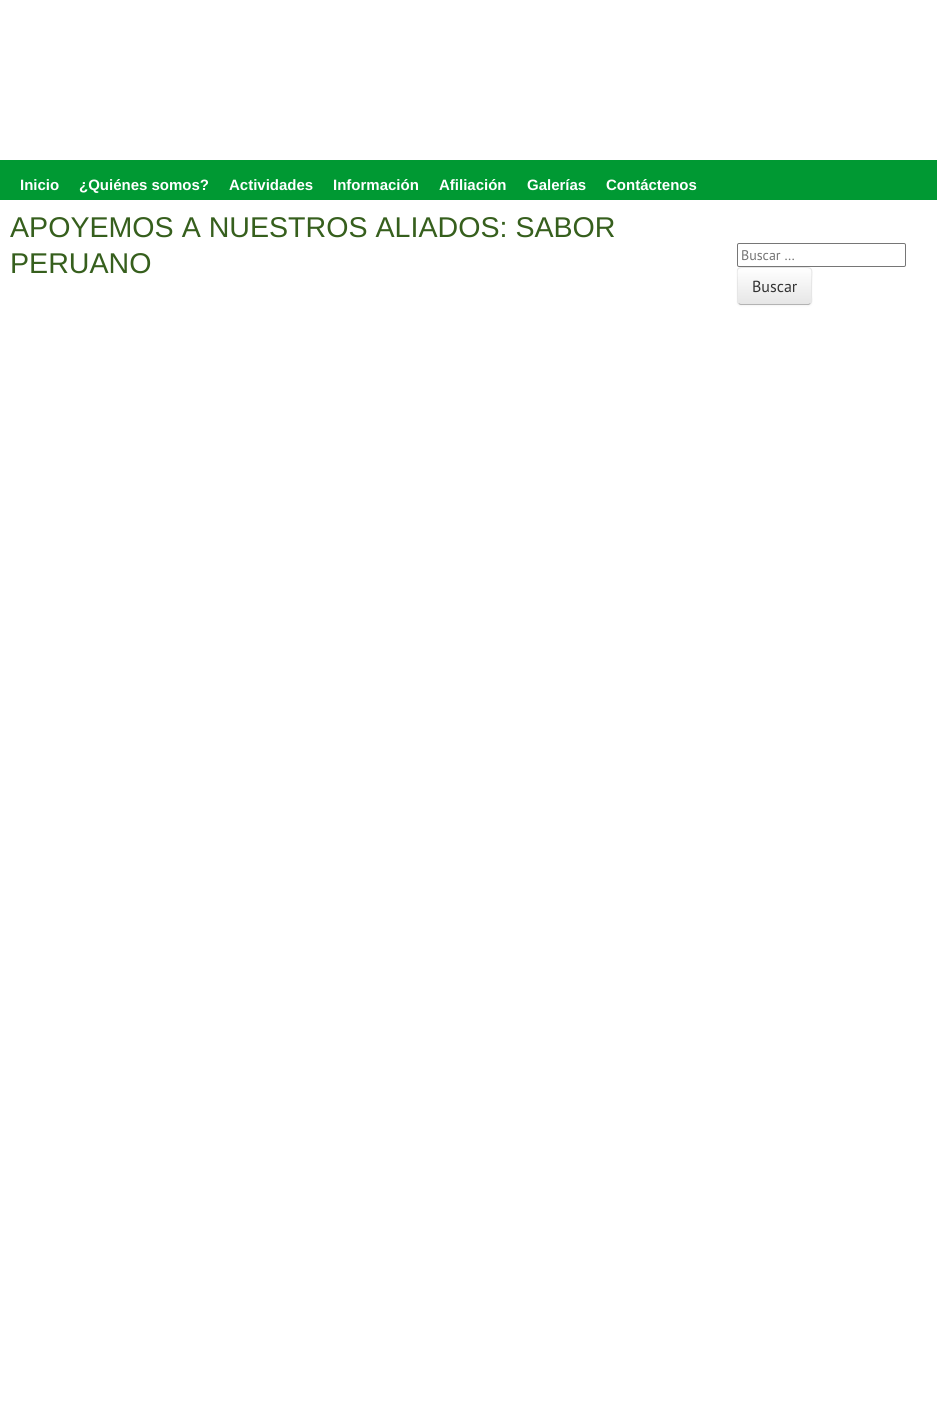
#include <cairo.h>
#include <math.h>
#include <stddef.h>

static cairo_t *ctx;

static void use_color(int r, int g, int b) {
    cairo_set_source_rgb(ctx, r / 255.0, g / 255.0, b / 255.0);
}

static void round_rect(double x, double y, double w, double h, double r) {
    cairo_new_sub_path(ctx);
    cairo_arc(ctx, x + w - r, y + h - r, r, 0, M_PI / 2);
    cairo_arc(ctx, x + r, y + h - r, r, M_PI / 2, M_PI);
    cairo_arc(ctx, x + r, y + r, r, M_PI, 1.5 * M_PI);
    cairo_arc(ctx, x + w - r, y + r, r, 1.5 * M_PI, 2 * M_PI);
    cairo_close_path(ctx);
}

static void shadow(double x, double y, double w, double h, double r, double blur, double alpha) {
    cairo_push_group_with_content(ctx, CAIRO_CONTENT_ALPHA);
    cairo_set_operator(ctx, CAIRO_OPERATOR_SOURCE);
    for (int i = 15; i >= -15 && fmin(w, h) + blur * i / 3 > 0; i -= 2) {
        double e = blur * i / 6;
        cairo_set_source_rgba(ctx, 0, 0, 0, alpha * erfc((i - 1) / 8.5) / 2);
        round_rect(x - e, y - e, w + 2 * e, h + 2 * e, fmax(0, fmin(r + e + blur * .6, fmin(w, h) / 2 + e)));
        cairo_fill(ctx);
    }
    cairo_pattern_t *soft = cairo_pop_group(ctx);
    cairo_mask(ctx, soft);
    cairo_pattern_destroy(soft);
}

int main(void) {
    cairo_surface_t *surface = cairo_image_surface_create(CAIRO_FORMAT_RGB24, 937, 1408);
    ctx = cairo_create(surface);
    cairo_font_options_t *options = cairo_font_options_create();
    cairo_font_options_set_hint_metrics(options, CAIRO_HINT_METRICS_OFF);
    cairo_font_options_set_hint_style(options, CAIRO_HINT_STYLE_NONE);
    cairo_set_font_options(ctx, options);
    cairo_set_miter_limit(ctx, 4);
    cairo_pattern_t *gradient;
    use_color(255, 255, 255);
    cairo_paint(ctx);
    use_color(0, 153, 51);
    cairo_rectangle(ctx, 0, 160, 937, 40);
    cairo_fill(ctx);
    cairo_select_font_face(ctx, "Liberation Sans", CAIRO_FONT_SLANT_NORMAL, CAIRO_FONT_WEIGHT_BOLD);
    cairo_set_font_size(ctx, 15);
    use_color(255, 255, 255);
    cairo_move_to(ctx, 20, 190);
    cairo_show_text(ctx, "Inicio");
    cairo_move_to(ctx, 79, 190);
    cairo_show_text(ctx, "¿Quiénes somos?");
    cairo_move_to(ctx, 229, 190);
    cairo_show_text(ctx, "Actividades");
    cairo_move_to(ctx, 333, 190);
    cairo_show_text(ctx, "Información");
    cairo_move_to(ctx, 439, 190);
    cairo_show_text(ctx, "Afiliación");
    cairo_move_to(ctx, 527, 190);
    cairo_show_text(ctx, "Galerías");
    cairo_move_to(ctx, 606, 190);
    cairo_show_text(ctx, "Contáctenos");
    cairo_select_font_face(ctx, "Liberation Sans", CAIRO_FONT_SLANT_NORMAL, CAIRO_FONT_WEIGHT_NORMAL);
    cairo_set_font_size(ctx, 28.6);
    use_color(54, 95, 29);
    cairo_move_to(ctx, 10, 237);
    cairo_show_text(ctx, "APOYEMOS A NUESTROS ALIADOS: SABOR");
    cairo_move_to(ctx, 10, 273);
    cairo_show_text(ctx, "PERUANO");
    round_rect(737.5, 243.5, 168, 23, 1.5);
    use_color(118, 118, 118);
    cairo_set_line_width(ctx, 1);
    cairo_stroke(ctx);
    cairo_select_font_face(ctx, "PT Sans", CAIRO_FONT_SLANT_NORMAL, CAIRO_FONT_WEIGHT_NORMAL);
    cairo_set_font_size(ctx, 14);
    use_color(117, 117, 117);
    cairo_move_to(ctx, 741, 260);
    cairo_show_text(ctx, "Buscar …");
    use_color(0, 0, 0);
    shadow(737, 268, 75, 38, 4, 1, 0.05);
    use_color(245, 245, 245);
    round_rect(737, 267, 75, 38, 4);
    cairo_fill(ctx);
    cairo_save(ctx);
    round_rect(737, 267, 75, 38, 4);
    cairo_clip(ctx);
    gradient = cairo_pattern_create_linear(775, 268, 775, 304);
    cairo_pattern_add_color_stop_rgba(gradient, 0, 1, 1, 1, 1);
    cairo_pattern_add_color_stop_rgba(gradient, 1, 0.902, 0.902, 0.902, 1);
    cairo_set_source(ctx, gradient);
    cairo_pattern_destroy(gradient);
    cairo_rectangle(ctx, 737, 268, 75, 36);
    cairo_fill(ctx);
    cairo_restore(ctx);
    cairo_new_path(ctx);
    cairo_move_to(ctx, 810.5, 303.5);
    cairo_line_to(ctx, 808.5, 304.5);
    cairo_line_to(ctx, 740.5, 304.5);
    cairo_line_to(ctx, 738.5, 303.5);
    use_color(179, 179, 179);
    cairo_stroke(ctx);
    cairo_save(ctx);
    cairo_rectangle(ctx, 737, 210, 190, 95);
    cairo_clip(ctx);
    cairo_new_path(ctx);
    cairo_move_to(ctx, 738.5, 303.5);
    cairo_curve_to(ctx, 736.5, 301.5, 737.5, 298, 737.5, 296);
    cairo_line_to(ctx, 737.5, 286);
    cairo_curve_to(ctx, 737.5, 266, 733.5, 267.5, 752, 267.5);
    cairo_line_to(ctx, 797, 267.5);
    cairo_curve_to(ctx, 815.5, 267.5, 811.5, 266, 811.5, 286);
    cairo_line_to(ctx, 811.5, 296);
    cairo_curve_to(ctx, 811.5, 298, 812.5, 301.5, 810.5, 303.5);
    use_color(230, 230, 230);
    cairo_stroke(ctx);
    cairo_restore(ctx);
    cairo_set_font_size(ctx, 16);
    use_color(51, 51, 51);
    cairo_move_to(ctx, 752, 292);
    cairo_show_text(ctx, "Buscar");
    cairo_surface_write_to_png(surface, "result.png");
    cairo_font_options_destroy(options);
    cairo_destroy(ctx);
    cairo_surface_destroy(surface);
    return 0;
}
